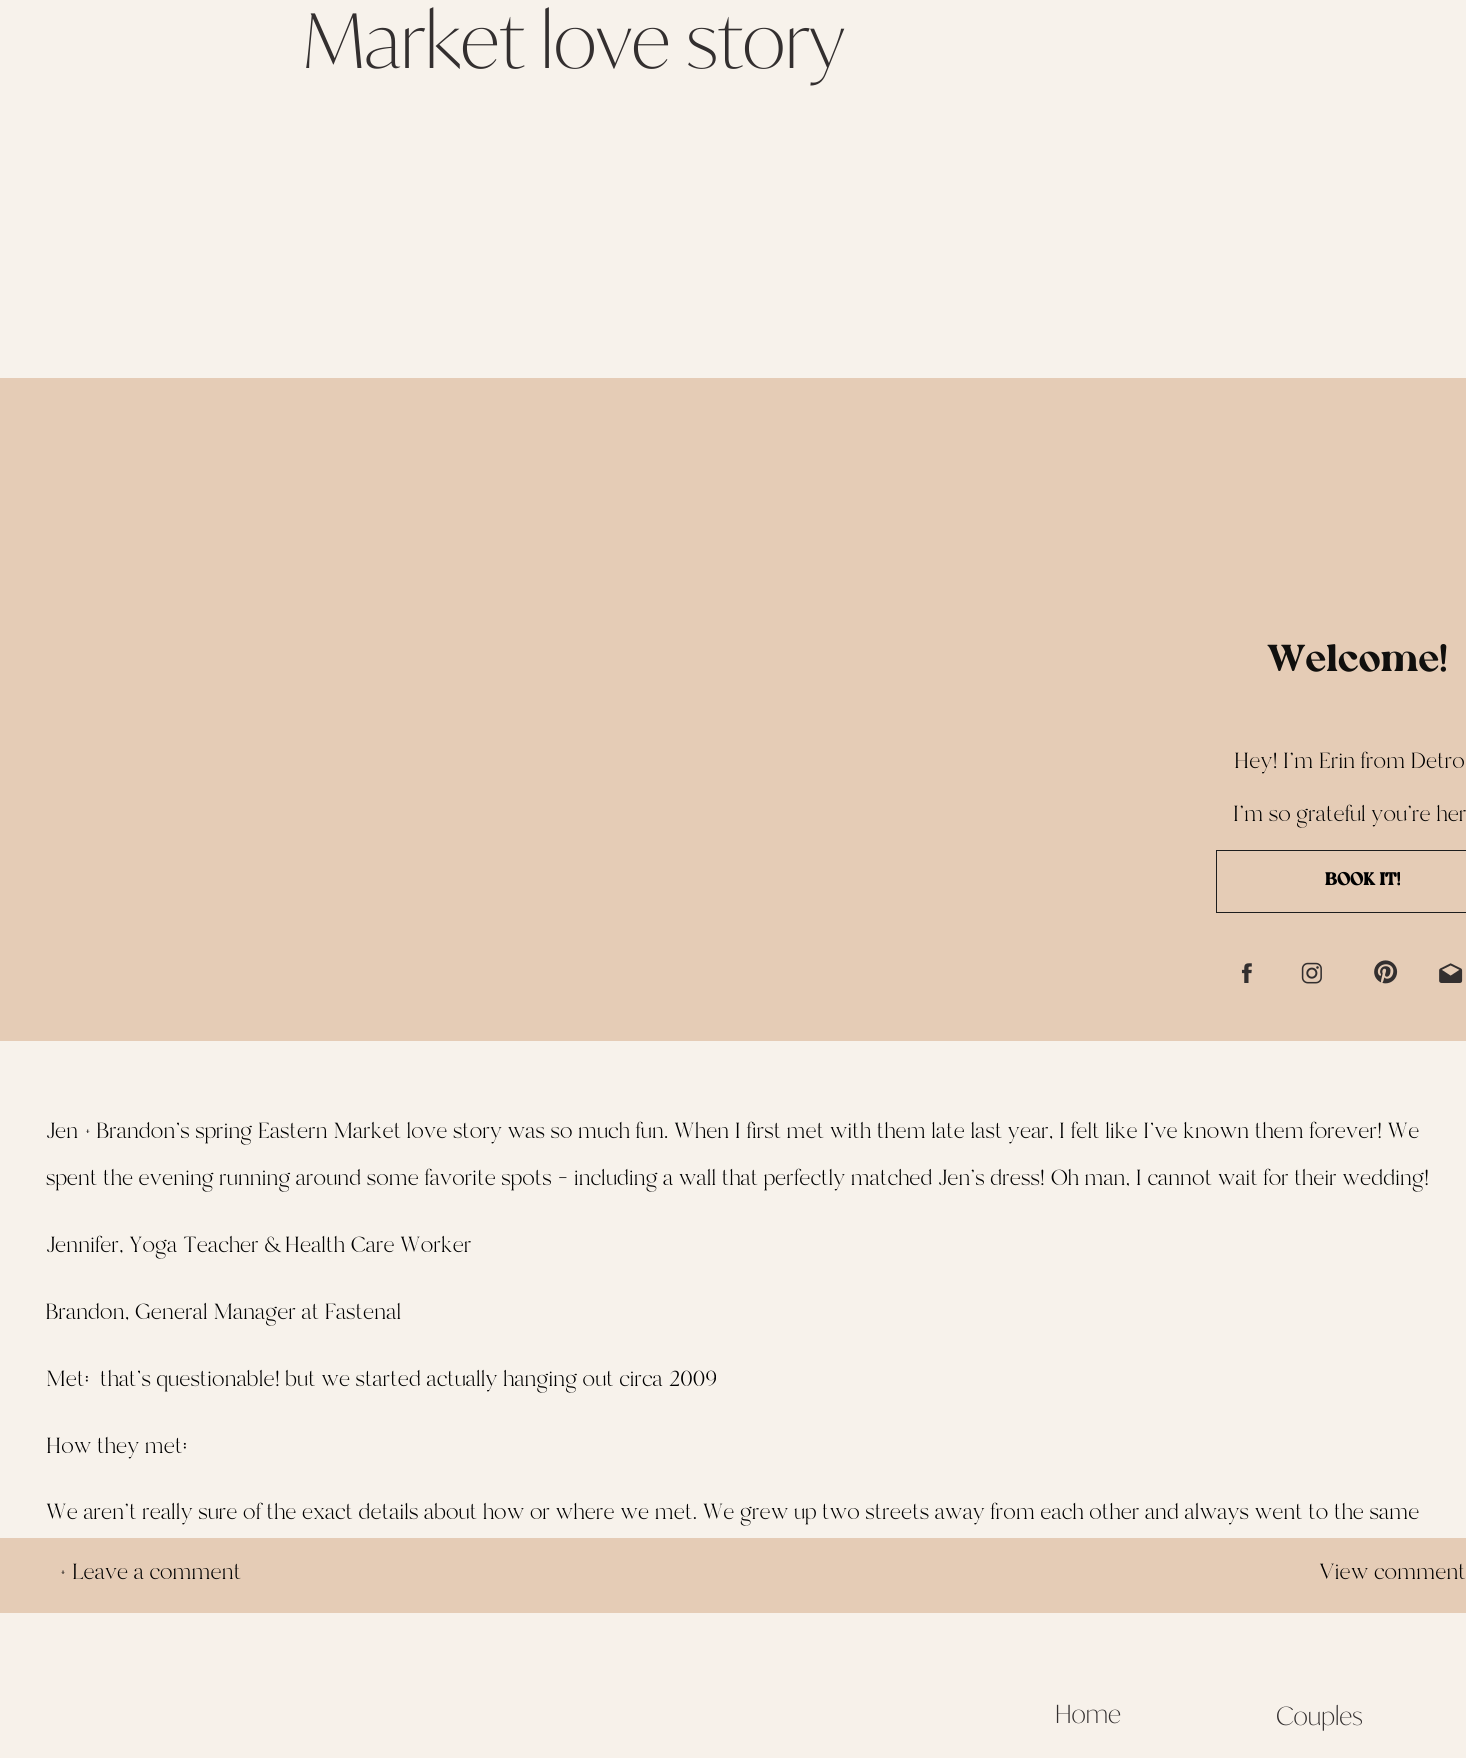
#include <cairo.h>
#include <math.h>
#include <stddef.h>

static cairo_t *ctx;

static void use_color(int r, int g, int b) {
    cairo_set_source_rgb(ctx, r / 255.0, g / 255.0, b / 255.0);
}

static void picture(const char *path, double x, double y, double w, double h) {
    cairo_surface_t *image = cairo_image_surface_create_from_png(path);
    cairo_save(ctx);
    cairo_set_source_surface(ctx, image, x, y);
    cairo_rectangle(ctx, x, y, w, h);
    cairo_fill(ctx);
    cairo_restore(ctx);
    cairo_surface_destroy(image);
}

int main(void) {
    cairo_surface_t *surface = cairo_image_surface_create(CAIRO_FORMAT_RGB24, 1466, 1758);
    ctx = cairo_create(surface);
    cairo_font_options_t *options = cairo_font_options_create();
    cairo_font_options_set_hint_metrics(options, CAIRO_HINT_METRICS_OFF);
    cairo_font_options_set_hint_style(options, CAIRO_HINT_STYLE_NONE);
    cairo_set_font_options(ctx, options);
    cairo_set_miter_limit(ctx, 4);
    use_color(240, 238, 229);
    cairo_paint(ctx);
    use_color(247, 242, 235);
    cairo_rectangle(ctx, 0, 0, 1466, 378);
    cairo_fill(ctx);
    cairo_select_font_face(ctx, "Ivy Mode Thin", CAIRO_FONT_SLANT_NORMAL, CAIRO_FONT_WEIGHT_NORMAL);
    cairo_set_font_size(ctx, 75);
    use_color(51, 47, 47);
    cairo_move_to(ctx, 303, 68);
    cairo_show_text(ctx, "Market love story");
    use_color(229, 204, 182);
    cairo_rectangle(ctx, 0, 378, 1466, 663);
    cairo_fill(ctx);
    cairo_select_font_face(ctx, "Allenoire", CAIRO_FONT_SLANT_NORMAL, CAIRO_FONT_WEIGHT_NORMAL);
    cairo_set_font_size(ctx, 37.5);
    use_color(17, 16, 14);
    cairo_move_to(ctx, 1267, 671);
    cairo_show_text(ctx, "Welcome!");
    cairo_select_font_face(ctx, "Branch", CAIRO_FONT_SLANT_NORMAL, CAIRO_FONT_WEIGHT_NORMAL);
    cairo_set_font_size(ctx, 31.25);
    use_color(0, 0, 0);
    cairo_move_to(ctx, 1234, 768);
    cairo_show_text(ctx, "Hey! I'm Erin from Detro");
    cairo_move_to(ctx, 1233, 821);
    cairo_show_text(ctx, "I'm so grateful you're her");
    cairo_rectangle(ctx, 1216.5, 850.5, 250, 62);
    use_color(29, 29, 29);
    cairo_set_line_width(ctx, 1);
    cairo_stroke(ctx);
    cairo_select_font_face(ctx, "Allenoire", CAIRO_FONT_SLANT_NORMAL, CAIRO_FONT_WEIGHT_BOLD);
    cairo_set_font_size(ctx, 17.5);
    use_color(0, 0, 0);
    cairo_move_to(ctx, 1325, 885);
    cairo_show_text(ctx, "BOOK IT!");
    picture("img1.png", 1241, 963, 11, 20);
    picture("img2.png", 1301, 962, 21, 22);
    picture("img3.png", 1374, 960, 24, 24);
    picture("img4.png", 1439, 963, 24, 20);
    use_color(247, 242, 235);
    cairo_rectangle(ctx, 0, 1041, 1466, 497);
    cairo_fill(ctx);
    cairo_select_font_face(ctx, "Branch", CAIRO_FONT_SLANT_NORMAL, CAIRO_FONT_WEIGHT_NORMAL);
    cairo_set_font_size(ctx, 31.25);
    use_color(0, 0, 0);
    cairo_move_to(ctx, 46, 1138);
    cairo_show_text(ctx, "Jen + Brandon’s spring Eastern Market love story was so much fun. When I first met with them late last year, I felt like I’ve known them forever! We");
    cairo_move_to(ctx, 46, 1185);
    cairo_show_text(ctx, "spent the evening running around some favorite spots – including a wall that perfectly matched Jen’s dress! Oh man, I cannot wait for their wedding!");
    cairo_move_to(ctx, 46, 1252);
    cairo_show_text(ctx, "Jennifer, Yoga Teacher & Health Care Worker");
    cairo_move_to(ctx, 46, 1319);
    cairo_show_text(ctx, "Brandon, General Manager at Fastenal");
    cairo_move_to(ctx, 46, 1386);
    cairo_show_text(ctx, "Met:  that’s questionable! but we started actually hanging out circa 2009");
    cairo_move_to(ctx, 46, 1453);
    cairo_show_text(ctx, "How they met:");
    cairo_move_to(ctx, 46, 1519);
    cairo_show_text(ctx, "We aren’t really sure of the exact details about how or where we met. We grew up two streets away from each other and always went to the same");
    use_color(229, 204, 182);
    cairo_rectangle(ctx, 0, 1538, 1466, 75);
    cairo_fill(ctx);
    use_color(0, 0, 0);
    cairo_move_to(ctx, 59, 1579);
    cairo_show_text(ctx, "+ Leave a comment");
    cairo_move_to(ctx, 1319, 1579);
    cairo_show_text(ctx, "View comment");
    cairo_set_source_rgba(ctx, 0.969, 0.949, 0.922, 0.9);
    cairo_rectangle(ctx, 0, 1613, 1466, 145);
    cairo_fill(ctx);
    cairo_select_font_face(ctx, "Ivy Mode Thin", CAIRO_FONT_SLANT_NORMAL, CAIRO_FONT_WEIGHT_NORMAL);
    cairo_set_font_size(ctx, 25);
    use_color(51, 47, 47);
    cairo_move_to(ctx, 1055, 1723);
    cairo_show_text(ctx, "Home");
    cairo_move_to(ctx, 1276, 1725);
    cairo_show_text(ctx, "Couples");
    cairo_surface_write_to_png(surface, "result.png");
    cairo_font_options_destroy(options);
    cairo_destroy(ctx);
    cairo_surface_destroy(surface);
    return 0;
}
